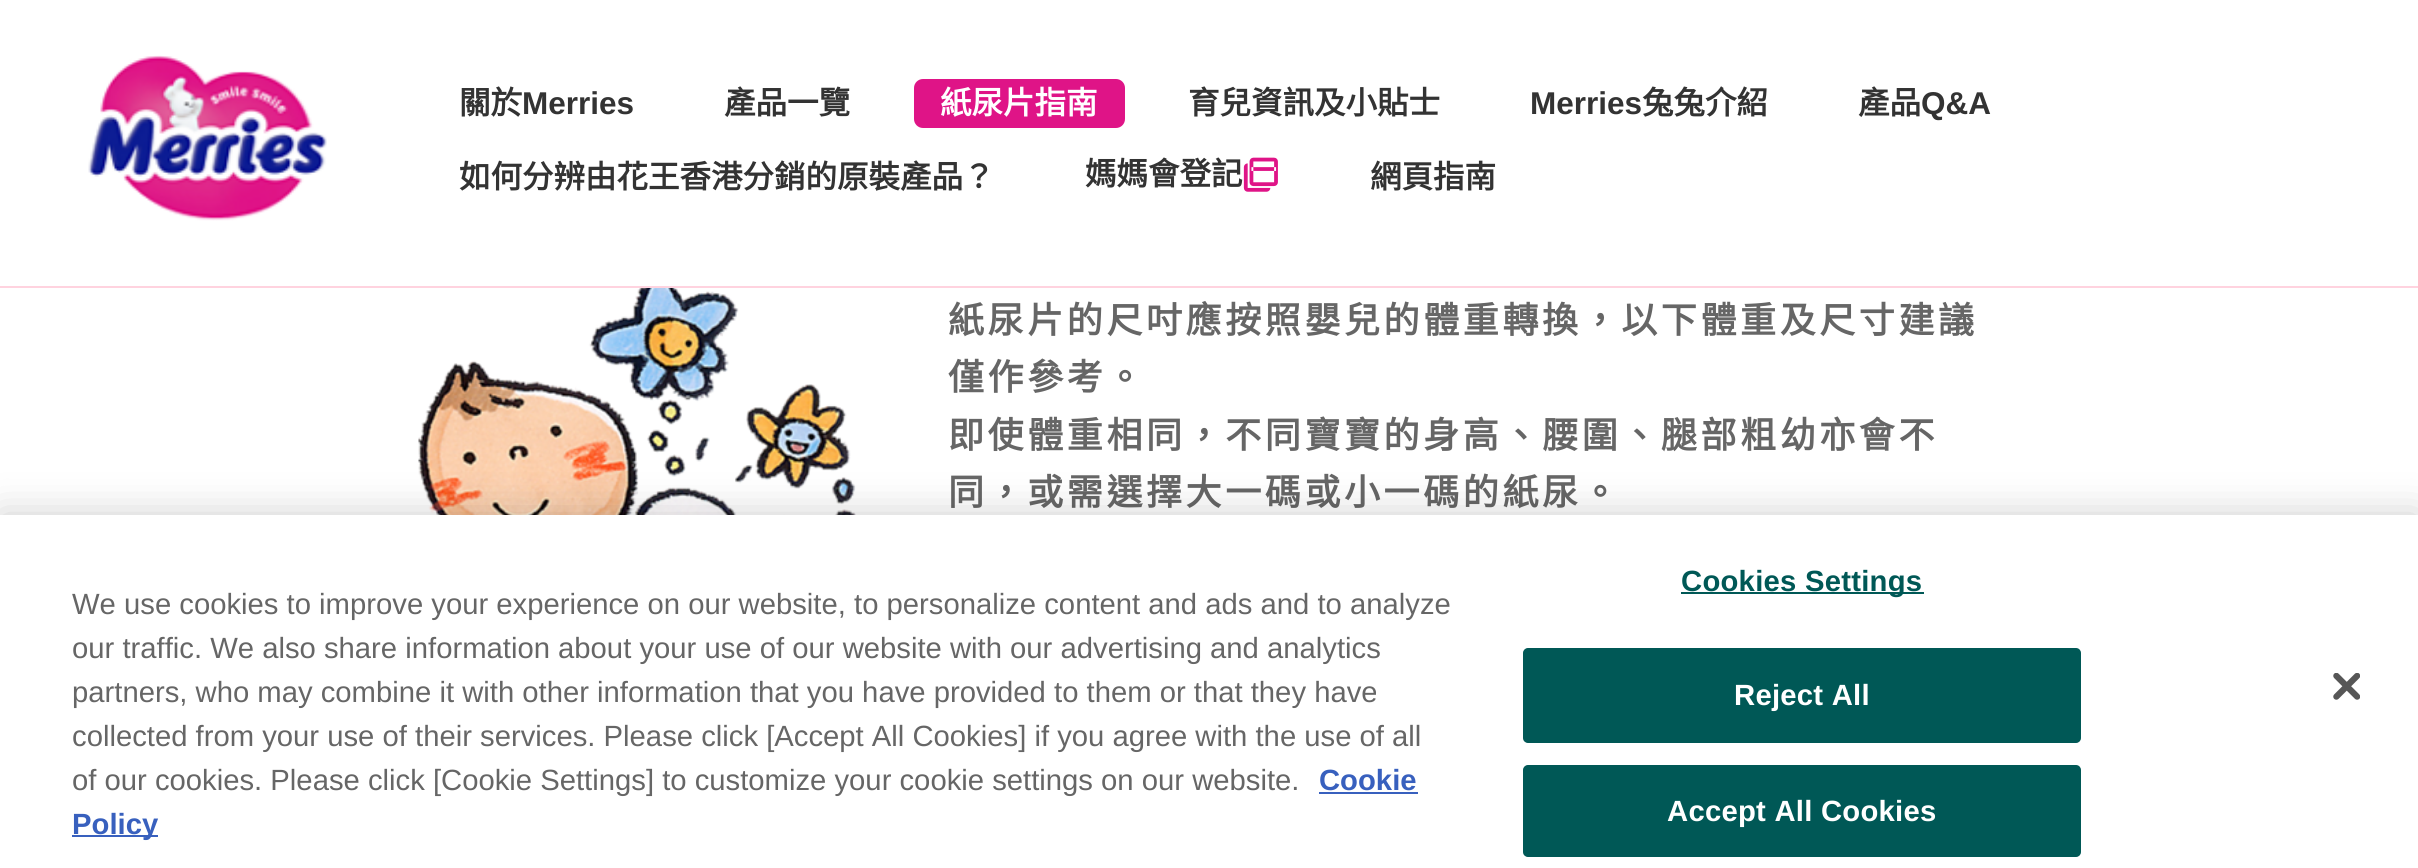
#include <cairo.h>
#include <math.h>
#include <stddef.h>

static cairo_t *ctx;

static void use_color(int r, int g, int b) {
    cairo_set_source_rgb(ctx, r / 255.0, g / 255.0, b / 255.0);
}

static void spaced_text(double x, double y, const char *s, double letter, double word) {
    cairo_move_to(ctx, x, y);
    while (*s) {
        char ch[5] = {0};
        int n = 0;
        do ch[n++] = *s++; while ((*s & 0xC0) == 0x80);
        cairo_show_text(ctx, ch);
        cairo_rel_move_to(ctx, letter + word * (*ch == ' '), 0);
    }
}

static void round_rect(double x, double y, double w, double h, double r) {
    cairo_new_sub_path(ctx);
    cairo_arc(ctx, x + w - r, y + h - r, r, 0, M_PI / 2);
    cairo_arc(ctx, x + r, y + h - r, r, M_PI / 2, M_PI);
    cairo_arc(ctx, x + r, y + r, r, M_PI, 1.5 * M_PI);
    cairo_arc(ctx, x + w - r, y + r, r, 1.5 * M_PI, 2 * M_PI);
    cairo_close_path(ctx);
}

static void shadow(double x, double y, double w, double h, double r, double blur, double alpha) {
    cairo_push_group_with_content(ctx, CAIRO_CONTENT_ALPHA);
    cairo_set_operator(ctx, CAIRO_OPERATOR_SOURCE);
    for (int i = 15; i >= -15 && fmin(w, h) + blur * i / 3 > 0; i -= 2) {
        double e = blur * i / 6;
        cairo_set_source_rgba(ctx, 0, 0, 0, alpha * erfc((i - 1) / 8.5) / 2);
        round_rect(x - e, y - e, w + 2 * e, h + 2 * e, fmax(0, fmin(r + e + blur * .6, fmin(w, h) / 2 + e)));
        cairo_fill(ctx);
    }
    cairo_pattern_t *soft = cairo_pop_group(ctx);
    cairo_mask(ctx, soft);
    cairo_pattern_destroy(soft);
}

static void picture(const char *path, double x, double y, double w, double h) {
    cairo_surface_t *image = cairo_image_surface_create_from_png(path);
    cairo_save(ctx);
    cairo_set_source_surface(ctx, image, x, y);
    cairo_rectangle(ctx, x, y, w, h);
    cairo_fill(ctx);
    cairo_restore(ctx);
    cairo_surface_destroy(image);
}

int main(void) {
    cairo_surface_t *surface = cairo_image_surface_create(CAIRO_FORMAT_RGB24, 2418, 868);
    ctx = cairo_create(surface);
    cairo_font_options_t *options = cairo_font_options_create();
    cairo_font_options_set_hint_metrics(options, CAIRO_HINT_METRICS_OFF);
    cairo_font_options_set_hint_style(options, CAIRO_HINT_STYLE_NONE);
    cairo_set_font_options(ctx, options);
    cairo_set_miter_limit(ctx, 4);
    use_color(255, 255, 255);
    cairo_paint(ctx);
    use_color(255, 211, 223);
    cairo_rectangle(ctx, 0, 286, 2418, 2);
    cairo_fill(ctx);
    picture("img1.png", 88, 55, 239, 166);
    cairo_select_font_face(ctx, "Noto Sans CJK HK", CAIRO_FONT_SLANT_NORMAL, CAIRO_FONT_WEIGHT_BOLD);
    cairo_set_font_size(ctx, 31.5);
    use_color(51, 51, 51);
    cairo_move_to(ctx, 459, 114);
    cairo_show_text(ctx, "關於");
    cairo_select_font_face(ctx, "Liberation Sans", CAIRO_FONT_SLANT_NORMAL, CAIRO_FONT_WEIGHT_BOLD);
    cairo_move_to(ctx, 522, 114);
    cairo_show_text(ctx, "Merries");
    cairo_select_font_face(ctx, "Noto Sans CJK HK", CAIRO_FONT_SLANT_NORMAL, CAIRO_FONT_WEIGHT_BOLD);
    cairo_move_to(ctx, 724, 114);
    cairo_show_text(ctx, "產品一覽");
    use_color(223, 20, 135);
    round_rect(914, 79, 211, 49, 9);
    cairo_fill(ctx);
    use_color(255, 255, 255);
    cairo_move_to(ctx, 940, 114);
    cairo_show_text(ctx, "紙尿片指南");
    use_color(51, 51, 51);
    cairo_move_to(ctx, 1188, 114);
    cairo_show_text(ctx, "育兒資訊及小貼士");
    cairo_select_font_face(ctx, "Liberation Sans", CAIRO_FONT_SLANT_NORMAL, CAIRO_FONT_WEIGHT_BOLD);
    cairo_move_to(ctx, 1530, 114);
    cairo_show_text(ctx, "Merries");
    cairo_select_font_face(ctx, "Noto Sans CJK HK", CAIRO_FONT_SLANT_NORMAL, CAIRO_FONT_WEIGHT_BOLD);
    cairo_move_to(ctx, 1642, 114);
    cairo_show_text(ctx, "兔兔介紹");
    cairo_move_to(ctx, 1858, 114);
    cairo_show_text(ctx, "產品");
    cairo_select_font_face(ctx, "Liberation Sans", CAIRO_FONT_SLANT_NORMAL, CAIRO_FONT_WEIGHT_BOLD);
    cairo_move_to(ctx, 1921, 114);
    cairo_show_text(ctx, "Q&A");
    cairo_select_font_face(ctx, "Noto Sans CJK HK", CAIRO_FONT_SLANT_NORMAL, CAIRO_FONT_WEIGHT_BOLD);
    cairo_move_to(ctx, 459, 188);
    cairo_show_text(ctx, "如何分辨由花王香港分銷的原裝產品？");
    cairo_move_to(ctx, 1085, 185);
    cairo_show_text(ctx, "媽媽會登記");
    picture("img2.png", 1243, 157, 35, 35);
    cairo_move_to(ctx, 1370, 188);
    cairo_show_text(ctx, "網頁指南");
    picture("img3.png", 418, 288, 438, 227);
    cairo_set_font_size(ctx, 36);
    use_color(102, 102, 102);
    spaced_text(948, 333, "紙尿片的尺吋應按照嬰兒的體重轉換，以下體重及尺寸建議", 3.6, 0);
    spaced_text(948, 390, "僅作參考。", 3.6, 0);
    spaced_text(948, 448, "即使體重相同，不同寶寶的身高、腰圍、腿部粗幼亦會不", 3.6, 0);
    spaced_text(948, 505, "同，或需選擇大一碼或小一碼的紙尿。", 3.6, 0);
    use_color(0, 0, 0);
    shadow(0, 515, 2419, 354, 0, 20, 0.2);
    use_color(255, 255, 255);
    cairo_rectangle(ctx, 0, 515, 2418, 353);
    cairo_fill(ctx);
    cairo_select_font_face(ctx, "Liberation Sans", CAIRO_FONT_SLANT_NORMAL, CAIRO_FONT_WEIGHT_NORMAL);
    cairo_set_font_size(ctx, 29.25);
    use_color(102, 102, 102);
    cairo_move_to(ctx, 72, 614);
    cairo_show_text(ctx, "We use cookies to improve your experience on our website, to personalize content and ads and to analyze");
    cairo_move_to(ctx, 72, 658);
    cairo_show_text(ctx, "our traffic. We also share information about your use of our website with our advertising and analytics");
    cairo_move_to(ctx, 72, 702);
    cairo_show_text(ctx, "partners, who may combine it with other information that you have provided to them or that they have");
    cairo_move_to(ctx, 72, 746);
    cairo_show_text(ctx, "collected from your use of their services. Please click [Accept All Cookies] if you agree with the use of all");
    cairo_move_to(ctx, 72, 790);
    cairo_show_text(ctx, "of our cookies. Please click [Cookie Settings] to customize your cookie settings on our website.");
    cairo_select_font_face(ctx, "Liberation Sans", CAIRO_FONT_SLANT_NORMAL, CAIRO_FONT_WEIGHT_BOLD);
    use_color(56, 96, 190);
    cairo_move_to(ctx, 1319, 790);
    cairo_show_text(ctx, "Cookie");
    cairo_rectangle(ctx, 1319, 792, 99, 2);
    cairo_fill(ctx);
    cairo_rectangle(ctx, 72, 835, 86, 2);
    cairo_fill(ctx);
    cairo_move_to(ctx, 72, 834);
    cairo_show_text(ctx, "Policy");
    use_color(0, 88, 86);
    cairo_rectangle(ctx, 1681, 592, 243, 2);
    cairo_fill(ctx);
    spaced_text(1681, 591, "Cookies Settings", 0.25, 0);
    round_rect(1524, 649, 556, 93, 4);
    cairo_fill_preserve(ctx);
    cairo_stroke(ctx);
    use_color(255, 255, 255);
    spaced_text(1734, 705, "Reject All", 0.25, 0);
    use_color(0, 88, 86);
    round_rect(1524, 766, 556, 90, 4);
    cairo_fill_preserve(ctx);
    cairo_stroke(ctx);
    use_color(255, 255, 255);
    spaced_text(1667, 821, "Accept All Cookies", 0.25, 0);
    picture("img4.png", 2333, 673, 27, 27);
    cairo_surface_write_to_png(surface, "result.png");
    cairo_font_options_destroy(options);
    cairo_destroy(ctx);
    cairo_surface_destroy(surface);
    return 0;
}
